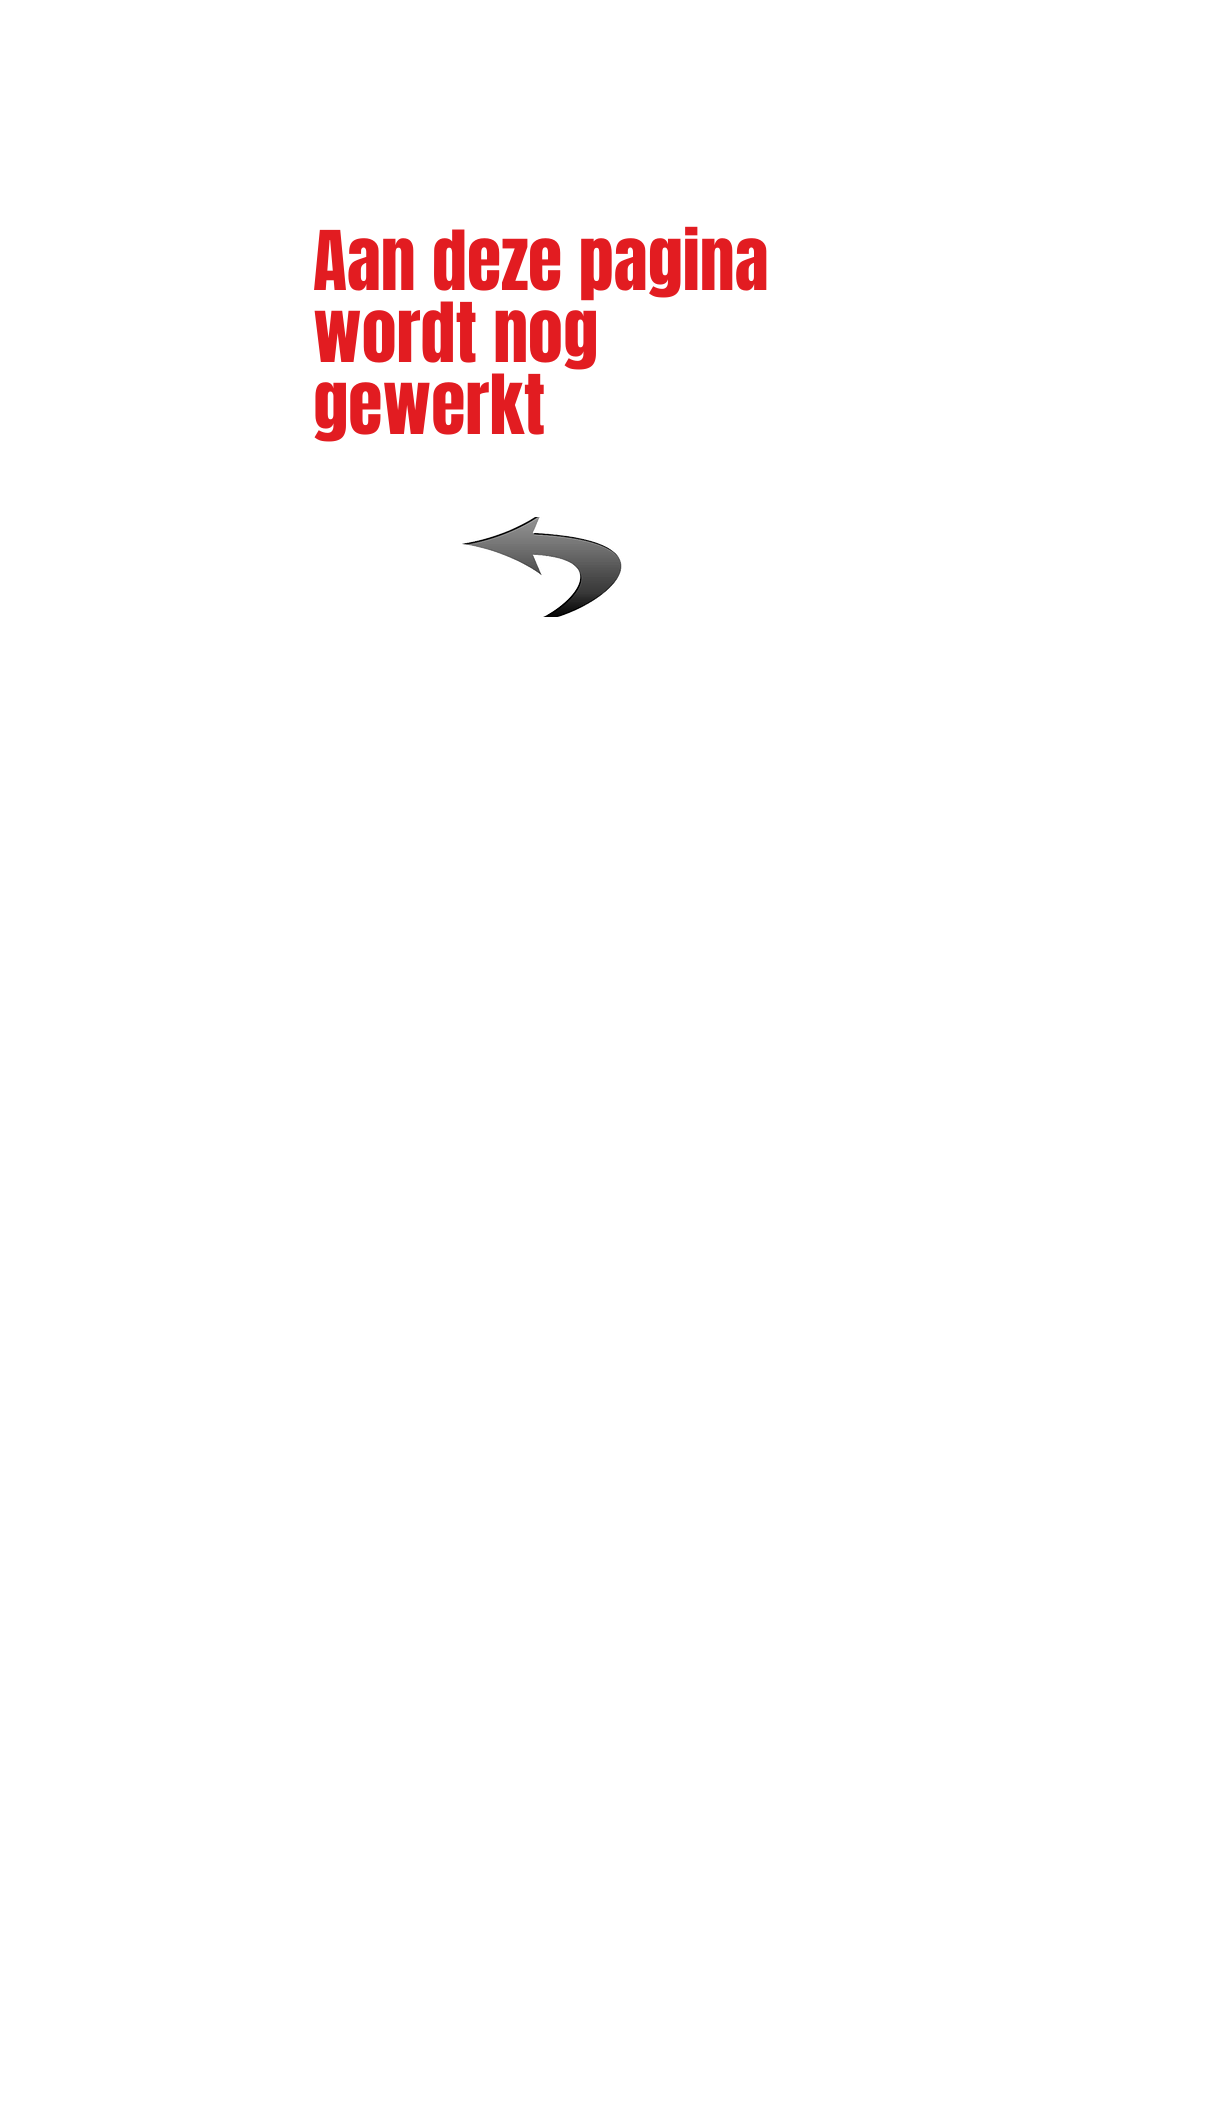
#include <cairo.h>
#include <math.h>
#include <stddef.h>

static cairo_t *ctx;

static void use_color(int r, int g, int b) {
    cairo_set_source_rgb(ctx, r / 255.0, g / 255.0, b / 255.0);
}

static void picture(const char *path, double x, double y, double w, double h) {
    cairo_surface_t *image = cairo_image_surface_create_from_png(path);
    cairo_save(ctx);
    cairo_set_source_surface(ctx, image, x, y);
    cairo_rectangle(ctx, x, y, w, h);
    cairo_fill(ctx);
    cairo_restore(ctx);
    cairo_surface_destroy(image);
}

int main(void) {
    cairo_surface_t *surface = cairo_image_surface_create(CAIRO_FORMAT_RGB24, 1223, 2127);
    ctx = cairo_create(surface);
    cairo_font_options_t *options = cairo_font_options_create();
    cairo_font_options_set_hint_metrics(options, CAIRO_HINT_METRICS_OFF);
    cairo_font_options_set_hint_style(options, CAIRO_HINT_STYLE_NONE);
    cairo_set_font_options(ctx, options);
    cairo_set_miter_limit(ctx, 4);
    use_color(255, 255, 255);
    cairo_paint(ctx);
    cairo_select_font_face(ctx, "Anton", CAIRO_FONT_SLANT_NORMAL, CAIRO_FONT_WEIGHT_NORMAL);
    cairo_set_font_size(ctx, 70);
    use_color(226, 28, 33);
    cairo_move_to(ctx, 313, 290);
    cairo_show_text(ctx, "Aan deze pagina");
    cairo_move_to(ctx, 313, 362);
    cairo_show_text(ctx, "wordt nog");
    cairo_move_to(ctx, 313, 434);
    cairo_show_text(ctx, "gewerkt");
    picture("img1.png", 462, 517, 160, 100);
    cairo_surface_write_to_png(surface, "result.png");
    cairo_font_options_destroy(options);
    cairo_destroy(ctx);
    cairo_surface_destroy(surface);
    return 0;
}
